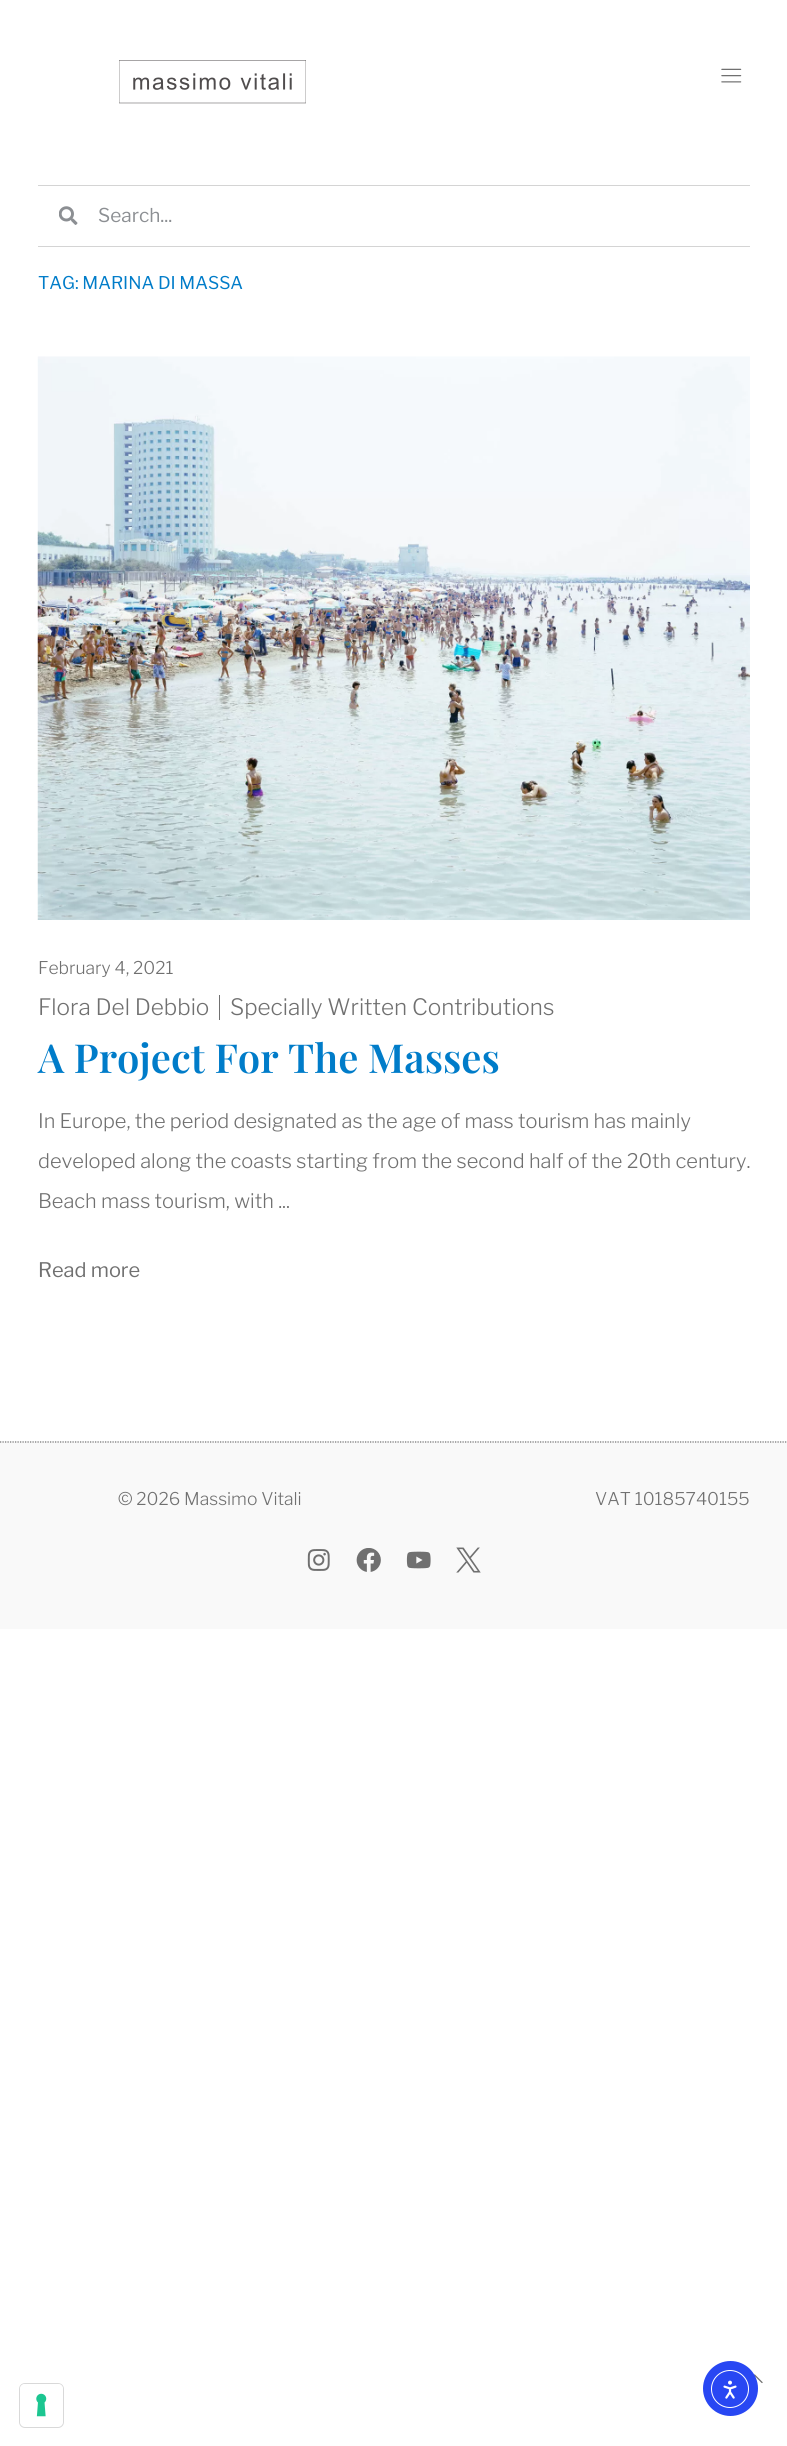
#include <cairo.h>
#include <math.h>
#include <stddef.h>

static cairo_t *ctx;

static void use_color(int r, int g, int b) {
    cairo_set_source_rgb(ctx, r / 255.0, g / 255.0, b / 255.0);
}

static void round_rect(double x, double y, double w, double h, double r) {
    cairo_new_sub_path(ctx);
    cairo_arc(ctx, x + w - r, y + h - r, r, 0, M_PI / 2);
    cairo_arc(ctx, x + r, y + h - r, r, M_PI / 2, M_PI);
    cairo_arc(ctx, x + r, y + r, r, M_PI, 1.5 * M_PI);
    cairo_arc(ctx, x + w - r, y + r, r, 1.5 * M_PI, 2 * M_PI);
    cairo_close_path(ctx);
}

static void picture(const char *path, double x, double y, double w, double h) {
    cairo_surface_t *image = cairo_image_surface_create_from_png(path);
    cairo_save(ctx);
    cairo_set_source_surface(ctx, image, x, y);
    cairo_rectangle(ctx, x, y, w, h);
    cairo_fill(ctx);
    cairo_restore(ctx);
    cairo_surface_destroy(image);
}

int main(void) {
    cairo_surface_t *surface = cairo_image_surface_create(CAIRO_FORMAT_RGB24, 787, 2446);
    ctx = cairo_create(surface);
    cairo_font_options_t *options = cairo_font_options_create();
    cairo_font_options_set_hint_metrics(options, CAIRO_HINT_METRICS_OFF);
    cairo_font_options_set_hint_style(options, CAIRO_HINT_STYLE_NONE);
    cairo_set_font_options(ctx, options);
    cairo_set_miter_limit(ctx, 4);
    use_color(255, 255, 255);
    cairo_paint(ctx);
    picture("img1.png", 119, 60, 187, 44);
    picture("img2.png", 721, 68, 21, 15);
    use_color(212, 212, 212);
    cairo_rectangle(ctx, 38, 185, 712, 1);
    cairo_fill(ctx);
    cairo_rectangle(ctx, 38, 246, 712, 1);
    cairo_fill(ctx);
    picture("img3.png", 59, 206, 19, 19);
    cairo_select_font_face(ctx, "Libre Franklin", CAIRO_FONT_SLANT_NORMAL, CAIRO_FONT_WEIGHT_NORMAL);
    cairo_set_font_size(ctx, 19);
    use_color(140, 143, 147);
    cairo_move_to(ctx, 98, 222);
    cairo_show_text(ctx, "Search...");
    cairo_set_font_size(ctx, 17.5);
    use_color(0, 124, 201);
    cairo_move_to(ctx, 38, 289);
    cairo_show_text(ctx, "TAG: MARINA DI MASSA");
    picture("img4.png", 37, 356, 713, 564);
    cairo_select_font_face(ctx, "Libre Franklin Light", CAIRO_FONT_SLANT_NORMAL, CAIRO_FONT_WEIGHT_NORMAL);
    use_color(112, 112, 112);
    cairo_move_to(ctx, 38, 974);
    cairo_show_text(ctx, "February 4, 2021");
    cairo_set_font_size(ctx, 22.5);
    cairo_move_to(ctx, 38, 1015);
    cairo_show_text(ctx, "Flora Del Debbio");
    cairo_rectangle(ctx, 219, 995, 1, 25);
    cairo_fill(ctx);
    cairo_move_to(ctx, 230, 1015);
    cairo_show_text(ctx, "Specially Written Contributions");
    cairo_select_font_face(ctx, "Playfair Display SemiBold", CAIRO_FONT_SLANT_NORMAL, CAIRO_FONT_WEIGHT_NORMAL);
    cairo_set_font_size(ctx, 40);
    use_color(0, 124, 201);
    cairo_move_to(ctx, 38, 1073);
    cairo_show_text(ctx, "A Project For The Masses");
    cairo_select_font_face(ctx, "Libre Franklin Light", CAIRO_FONT_SLANT_NORMAL, CAIRO_FONT_WEIGHT_NORMAL);
    cairo_set_font_size(ctx, 20);
    use_color(112, 112, 112);
    cairo_move_to(ctx, 38, 1128);
    cairo_show_text(ctx, "In Europe, the period designated as the age of mass tourism has mainly");
    cairo_move_to(ctx, 38, 1168);
    cairo_show_text(ctx, "developed along the coasts starting from the second half of the 20th century.");
    cairo_move_to(ctx, 38, 1208);
    cairo_show_text(ctx, "Beach mass tourism, with ...");
    cairo_select_font_face(ctx, "Libre Franklin", CAIRO_FONT_SLANT_NORMAL, CAIRO_FONT_WEIGHT_NORMAL);
    cairo_move_to(ctx, 38, 1277);
    cairo_show_text(ctx, "Read more");
    use_color(249, 249, 249);
    cairo_rectangle(ctx, 0, 1441, 787, 188);
    cairo_fill(ctx);
    cairo_new_path(ctx);
    cairo_move_to(ctx, 0, 1442);
    cairo_line_to(ctx, 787.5, 1442);
    use_color(112, 112, 112);
    cairo_set_line_width(ctx, 1.2);
    cairo_set_dash(ctx, (double[]){1.25, 1.25}, 2, 0);
    cairo_stroke(ctx);
    cairo_select_font_face(ctx, "Libre Franklin Light", CAIRO_FONT_SLANT_NORMAL, CAIRO_FONT_WEIGHT_NORMAL);
    cairo_set_font_size(ctx, 17.5);
    cairo_move_to(ctx, 118, 1505);
    cairo_show_text(ctx, "© 2026 Massimo Vitali");
    cairo_move_to(ctx, 595, 1505);
    cairo_show_text(ctx, "VAT 10185740155");
    picture("img5.png", 307, 1549, 23, 22);
    picture("img6.png", 356, 1548, 25, 24);
    picture("img7.png", 406, 1551, 25, 18);
    picture("img8.png", 456, 1547, 25, 26);
    picture("img9.png", 753, 2374, 10, 10);
    round_rect(19.5, 2383.5, 44, 44, 5.5);
    use_color(217, 217, 217);
    cairo_set_line_width(ctx, 1);
    cairo_set_dash(ctx, NULL, 0, 0);
    cairo_stroke(ctx);
    use_color(255, 255, 255);
    round_rect(20, 2384, 43, 42, 5);
    cairo_fill(ctx);
    picture("img10.png", 36, 2393, 11, 24);
    use_color(40, 71, 243);
    cairo_arc(ctx, 730.5, 2388.5, 27.5, 0, 2 * M_PI);
    cairo_fill(ctx);
    cairo_arc(ctx, 730, 2389, 18.5, 0, 2 * M_PI);
    use_color(255, 255, 255);
    cairo_stroke(ctx);
    picture("img11.png", 723, 2380, 14, 19);
    cairo_surface_write_to_png(surface, "result.png");
    cairo_font_options_destroy(options);
    cairo_destroy(ctx);
    cairo_surface_destroy(surface);
    return 0;
}
